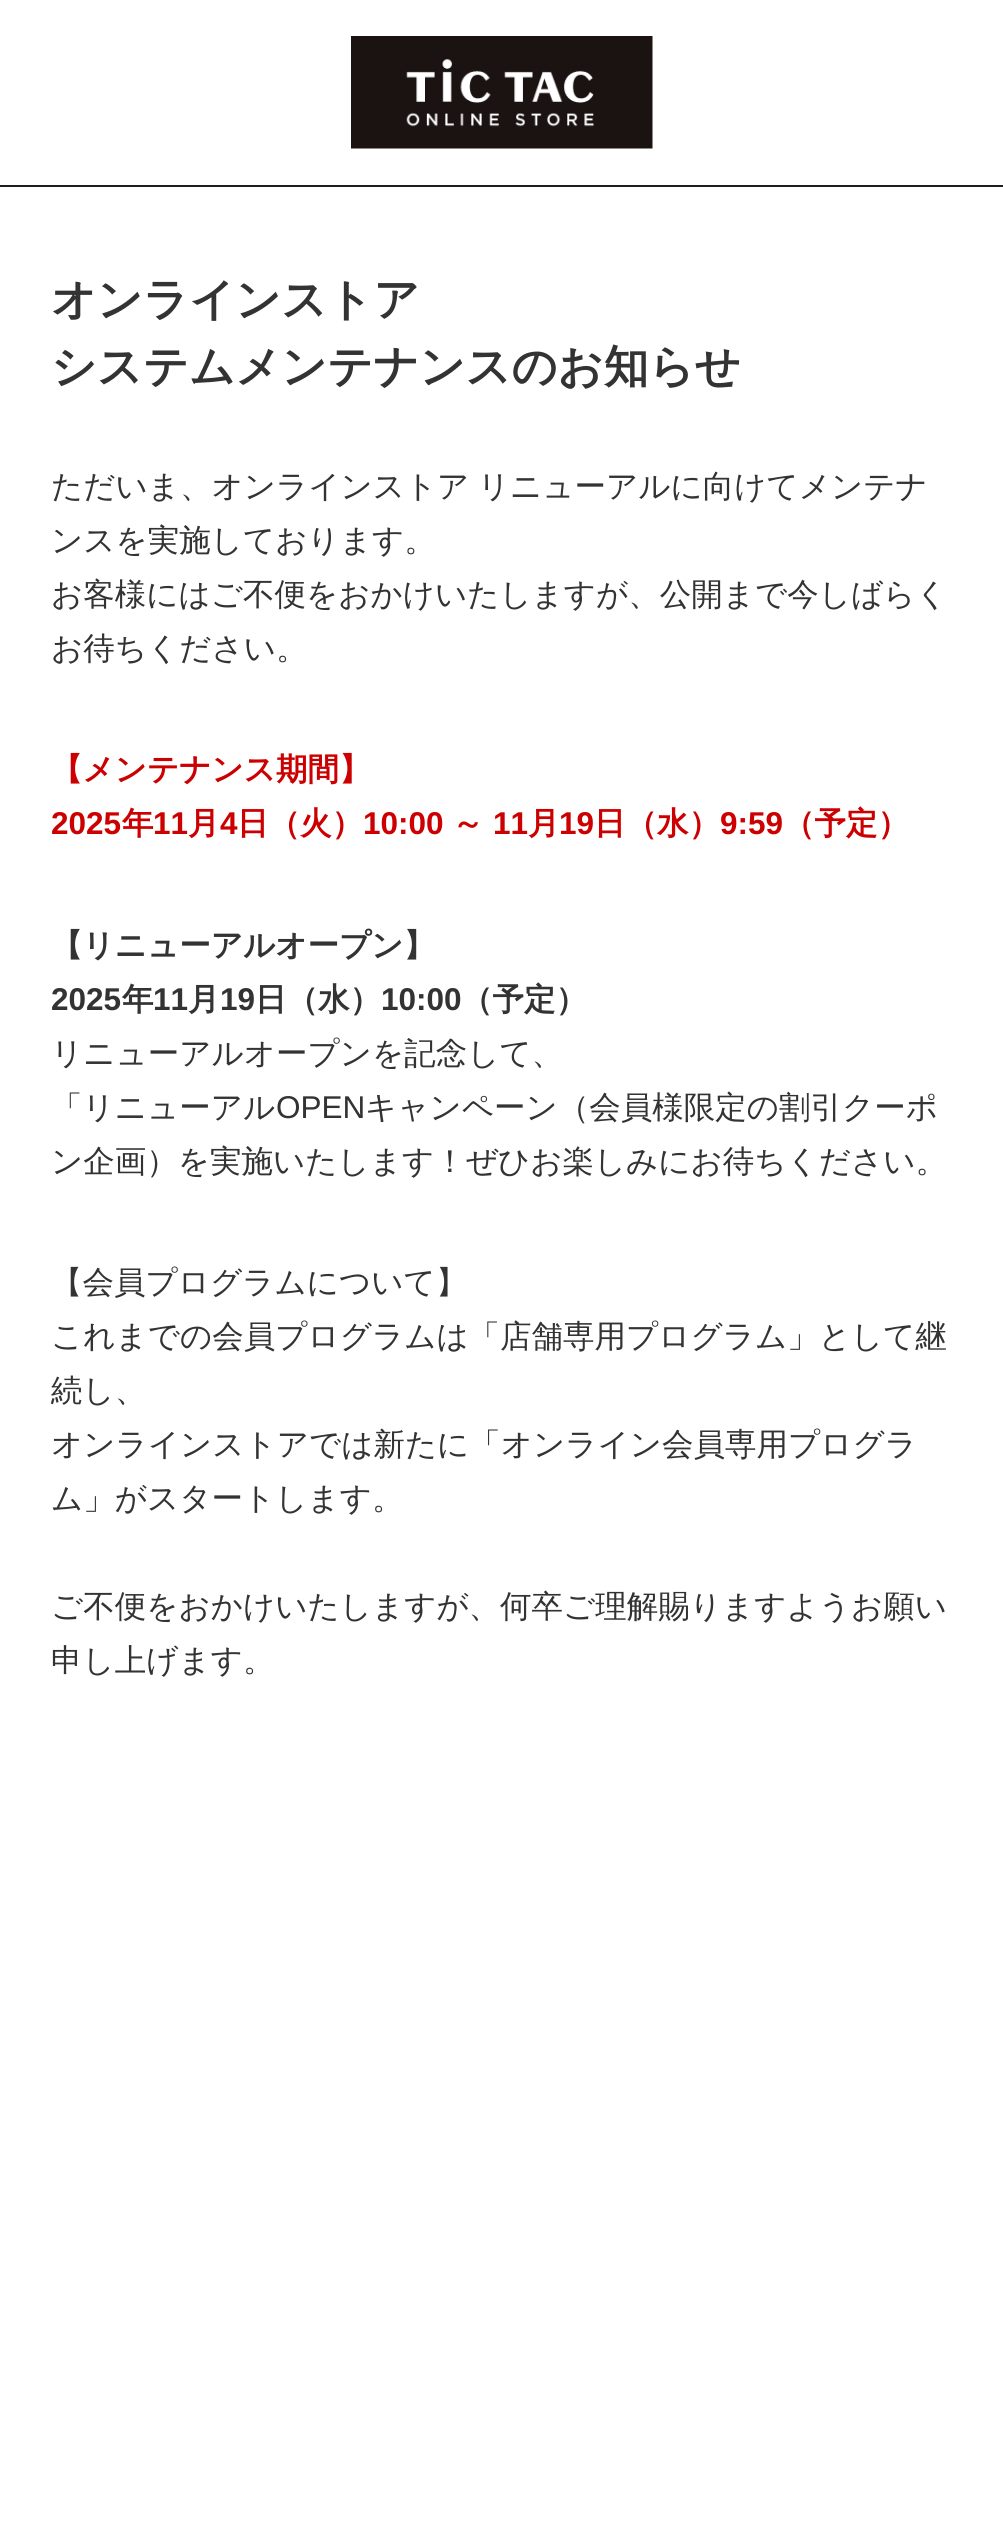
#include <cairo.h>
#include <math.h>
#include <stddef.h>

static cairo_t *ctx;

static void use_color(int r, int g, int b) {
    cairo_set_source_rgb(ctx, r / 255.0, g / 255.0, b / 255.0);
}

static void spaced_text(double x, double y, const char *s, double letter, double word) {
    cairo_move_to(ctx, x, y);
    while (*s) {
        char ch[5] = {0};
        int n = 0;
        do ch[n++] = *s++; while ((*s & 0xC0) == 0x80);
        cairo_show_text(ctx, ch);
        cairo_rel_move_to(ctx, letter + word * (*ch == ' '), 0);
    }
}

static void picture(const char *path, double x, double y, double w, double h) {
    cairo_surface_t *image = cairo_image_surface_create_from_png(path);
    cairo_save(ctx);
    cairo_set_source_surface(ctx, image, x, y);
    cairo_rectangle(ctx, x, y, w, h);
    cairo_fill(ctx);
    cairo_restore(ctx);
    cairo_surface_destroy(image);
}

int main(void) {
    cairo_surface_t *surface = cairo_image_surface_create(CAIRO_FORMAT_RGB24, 1003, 2522);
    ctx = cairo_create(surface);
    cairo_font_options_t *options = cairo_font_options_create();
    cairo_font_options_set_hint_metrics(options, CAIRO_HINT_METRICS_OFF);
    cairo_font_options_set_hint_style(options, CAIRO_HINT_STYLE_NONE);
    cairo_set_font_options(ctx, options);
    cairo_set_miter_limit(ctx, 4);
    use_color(255, 255, 255);
    cairo_paint(ctx);
    use_color(30, 30, 33);
    cairo_rectangle(ctx, 0, 185, 1003, 2);
    cairo_fill(ctx);
    picture("img1.png", 351, 36, 302, 113);
    cairo_select_font_face(ctx, "WenQuanYi Zen Hei", CAIRO_FONT_SLANT_NORMAL, CAIRO_FONT_WEIGHT_BOLD);
    cairo_set_font_size(ctx, 45);
    use_color(51, 51, 51);
    cairo_move_to(ctx, 51, 315);
    cairo_show_text(ctx, "オンラインストア");
    cairo_move_to(ctx, 51, 382);
    cairo_show_text(ctx, "システムメンテナンスのお知らせ");
    cairo_select_font_face(ctx, "WenQuanYi Zen Hei Medium", CAIRO_FONT_SLANT_NORMAL, CAIRO_FONT_WEIGHT_NORMAL);
    cairo_set_font_size(ctx, 31.5);
    spaced_text(51, 497, "ただいま、オンラインストア リニューアルに向けてメンテナ", 0, -1);
    cairo_move_to(ctx, 51, 551);
    cairo_show_text(ctx, "ンスを実施しております。");
    cairo_move_to(ctx, 51, 605);
    cairo_show_text(ctx, "お客様にはご不便をおかけいたしますが、公開まで今しばらく");
    cairo_move_to(ctx, 51, 659);
    cairo_show_text(ctx, "お待ちください。");
    cairo_select_font_face(ctx, "WenQuanYi Zen Hei", CAIRO_FONT_SLANT_NORMAL, CAIRO_FONT_WEIGHT_BOLD);
    use_color(204, 0, 0);
    cairo_move_to(ctx, 51, 780);
    cairo_show_text(ctx, "【メンテナンス期間】");
    cairo_select_font_face(ctx, "Liberation Sans", CAIRO_FONT_SLANT_NORMAL, CAIRO_FONT_WEIGHT_BOLD);
    cairo_move_to(ctx, 51, 834);
    cairo_show_text(ctx, "2025");
    cairo_select_font_face(ctx, "WenQuanYi Zen Hei", CAIRO_FONT_SLANT_NORMAL, CAIRO_FONT_WEIGHT_BOLD);
    cairo_move_to(ctx, 122, 834);
    cairo_show_text(ctx, "年");
    cairo_select_font_face(ctx, "Liberation Sans", CAIRO_FONT_SLANT_NORMAL, CAIRO_FONT_WEIGHT_BOLD);
    cairo_move_to(ctx, 153, 834);
    cairo_show_text(ctx, "11");
    cairo_select_font_face(ctx, "WenQuanYi Zen Hei", CAIRO_FONT_SLANT_NORMAL, CAIRO_FONT_WEIGHT_BOLD);
    cairo_move_to(ctx, 188, 834);
    cairo_show_text(ctx, "月");
    cairo_select_font_face(ctx, "Liberation Sans", CAIRO_FONT_SLANT_NORMAL, CAIRO_FONT_WEIGHT_BOLD);
    cairo_move_to(ctx, 220, 834);
    cairo_show_text(ctx, "4");
    cairo_select_font_face(ctx, "WenQuanYi Zen Hei", CAIRO_FONT_SLANT_NORMAL, CAIRO_FONT_WEIGHT_BOLD);
    cairo_move_to(ctx, 237, 834);
    cairo_show_text(ctx, "日（火）");
    cairo_select_font_face(ctx, "Liberation Sans", CAIRO_FONT_SLANT_NORMAL, CAIRO_FONT_WEIGHT_BOLD);
    cairo_move_to(ctx, 363, 834);
    cairo_show_text(ctx, "10:00");
    cairo_select_font_face(ctx, "WenQuanYi Zen Hei", CAIRO_FONT_SLANT_NORMAL, CAIRO_FONT_WEIGHT_BOLD);
    cairo_move_to(ctx, 452, 834);
    cairo_show_text(ctx, "～");
    cairo_select_font_face(ctx, "Liberation Sans", CAIRO_FONT_SLANT_NORMAL, CAIRO_FONT_WEIGHT_BOLD);
    cairo_move_to(ctx, 493, 834);
    cairo_show_text(ctx, "11");
    cairo_select_font_face(ctx, "WenQuanYi Zen Hei", CAIRO_FONT_SLANT_NORMAL, CAIRO_FONT_WEIGHT_BOLD);
    cairo_move_to(ctx, 528, 834);
    cairo_show_text(ctx, "月");
    cairo_select_font_face(ctx, "Liberation Sans", CAIRO_FONT_SLANT_NORMAL, CAIRO_FONT_WEIGHT_BOLD);
    cairo_move_to(ctx, 559, 834);
    cairo_show_text(ctx, "19");
    cairo_select_font_face(ctx, "WenQuanYi Zen Hei", CAIRO_FONT_SLANT_NORMAL, CAIRO_FONT_WEIGHT_BOLD);
    cairo_move_to(ctx, 594, 834);
    cairo_show_text(ctx, "日（水）");
    cairo_select_font_face(ctx, "Liberation Sans", CAIRO_FONT_SLANT_NORMAL, CAIRO_FONT_WEIGHT_BOLD);
    cairo_move_to(ctx, 720, 834);
    cairo_show_text(ctx, "9:59");
    cairo_select_font_face(ctx, "WenQuanYi Zen Hei", CAIRO_FONT_SLANT_NORMAL, CAIRO_FONT_WEIGHT_BOLD);
    cairo_move_to(ctx, 783, 834);
    cairo_show_text(ctx, "（予定）");
    use_color(51, 51, 51);
    cairo_move_to(ctx, 51, 956);
    cairo_show_text(ctx, "【リニューアルオープン】");
    cairo_select_font_face(ctx, "Liberation Sans", CAIRO_FONT_SLANT_NORMAL, CAIRO_FONT_WEIGHT_BOLD);
    cairo_move_to(ctx, 51, 1010);
    cairo_show_text(ctx, "2025");
    cairo_select_font_face(ctx, "WenQuanYi Zen Hei", CAIRO_FONT_SLANT_NORMAL, CAIRO_FONT_WEIGHT_BOLD);
    cairo_move_to(ctx, 122, 1010);
    cairo_show_text(ctx, "年");
    cairo_select_font_face(ctx, "Liberation Sans", CAIRO_FONT_SLANT_NORMAL, CAIRO_FONT_WEIGHT_BOLD);
    cairo_move_to(ctx, 153, 1010);
    cairo_show_text(ctx, "11");
    cairo_select_font_face(ctx, "WenQuanYi Zen Hei", CAIRO_FONT_SLANT_NORMAL, CAIRO_FONT_WEIGHT_BOLD);
    cairo_move_to(ctx, 188, 1010);
    cairo_show_text(ctx, "月");
    cairo_select_font_face(ctx, "Liberation Sans", CAIRO_FONT_SLANT_NORMAL, CAIRO_FONT_WEIGHT_BOLD);
    cairo_move_to(ctx, 220, 1010);
    cairo_show_text(ctx, "19");
    cairo_select_font_face(ctx, "WenQuanYi Zen Hei", CAIRO_FONT_SLANT_NORMAL, CAIRO_FONT_WEIGHT_BOLD);
    cairo_move_to(ctx, 255, 1010);
    cairo_show_text(ctx, "日（水）");
    cairo_select_font_face(ctx, "Liberation Sans", CAIRO_FONT_SLANT_NORMAL, CAIRO_FONT_WEIGHT_BOLD);
    cairo_move_to(ctx, 381, 1010);
    cairo_show_text(ctx, "10:00");
    cairo_select_font_face(ctx, "WenQuanYi Zen Hei", CAIRO_FONT_SLANT_NORMAL, CAIRO_FONT_WEIGHT_BOLD);
    cairo_move_to(ctx, 461, 1010);
    cairo_show_text(ctx, "（予定）");
    cairo_select_font_face(ctx, "WenQuanYi Zen Hei Medium", CAIRO_FONT_SLANT_NORMAL, CAIRO_FONT_WEIGHT_NORMAL);
    cairo_move_to(ctx, 51, 1064);
    cairo_show_text(ctx, "リニューアルオープンを記念して、");
    cairo_move_to(ctx, 51, 1118);
    cairo_show_text(ctx, "「リニューアル");
    cairo_select_font_face(ctx, "Liberation Sans", CAIRO_FONT_SLANT_NORMAL, CAIRO_FONT_WEIGHT_NORMAL);
    cairo_move_to(ctx, 276, 1118);
    cairo_show_text(ctx, "OPEN");
    cairo_select_font_face(ctx, "WenQuanYi Zen Hei Medium", CAIRO_FONT_SLANT_NORMAL, CAIRO_FONT_WEIGHT_NORMAL);
    cairo_move_to(ctx, 365, 1118);
    cairo_show_text(ctx, "キャンペーン（会員様限定の割引クーポ");
    cairo_move_to(ctx, 51, 1172);
    cairo_show_text(ctx, "ン企画）を実施いたします！ぜひお楽しみにお待ちください。");
    cairo_move_to(ctx, 51, 1293);
    cairo_show_text(ctx, "【会員プログラムについて】");
    cairo_move_to(ctx, 51, 1347);
    cairo_show_text(ctx, "これまでの会員プログラムは「店舗専用プログラム」として継");
    cairo_move_to(ctx, 51, 1401);
    cairo_show_text(ctx, "続し、");
    cairo_move_to(ctx, 51, 1455);
    cairo_show_text(ctx, "オンラインストアでは新たに「オンライン会員専用プログラ");
    cairo_move_to(ctx, 51, 1509);
    cairo_show_text(ctx, "ム」がスタートします。");
    cairo_move_to(ctx, 51, 1617);
    cairo_show_text(ctx, "ご不便をおかけいたしますが、何卒ご理解賜りますようお願い");
    cairo_move_to(ctx, 51, 1671);
    cairo_show_text(ctx, "申し上げます。");
    cairo_surface_write_to_png(surface, "result.png");
    cairo_font_options_destroy(options);
    cairo_destroy(ctx);
    cairo_surface_destroy(surface);
    return 0;
}
